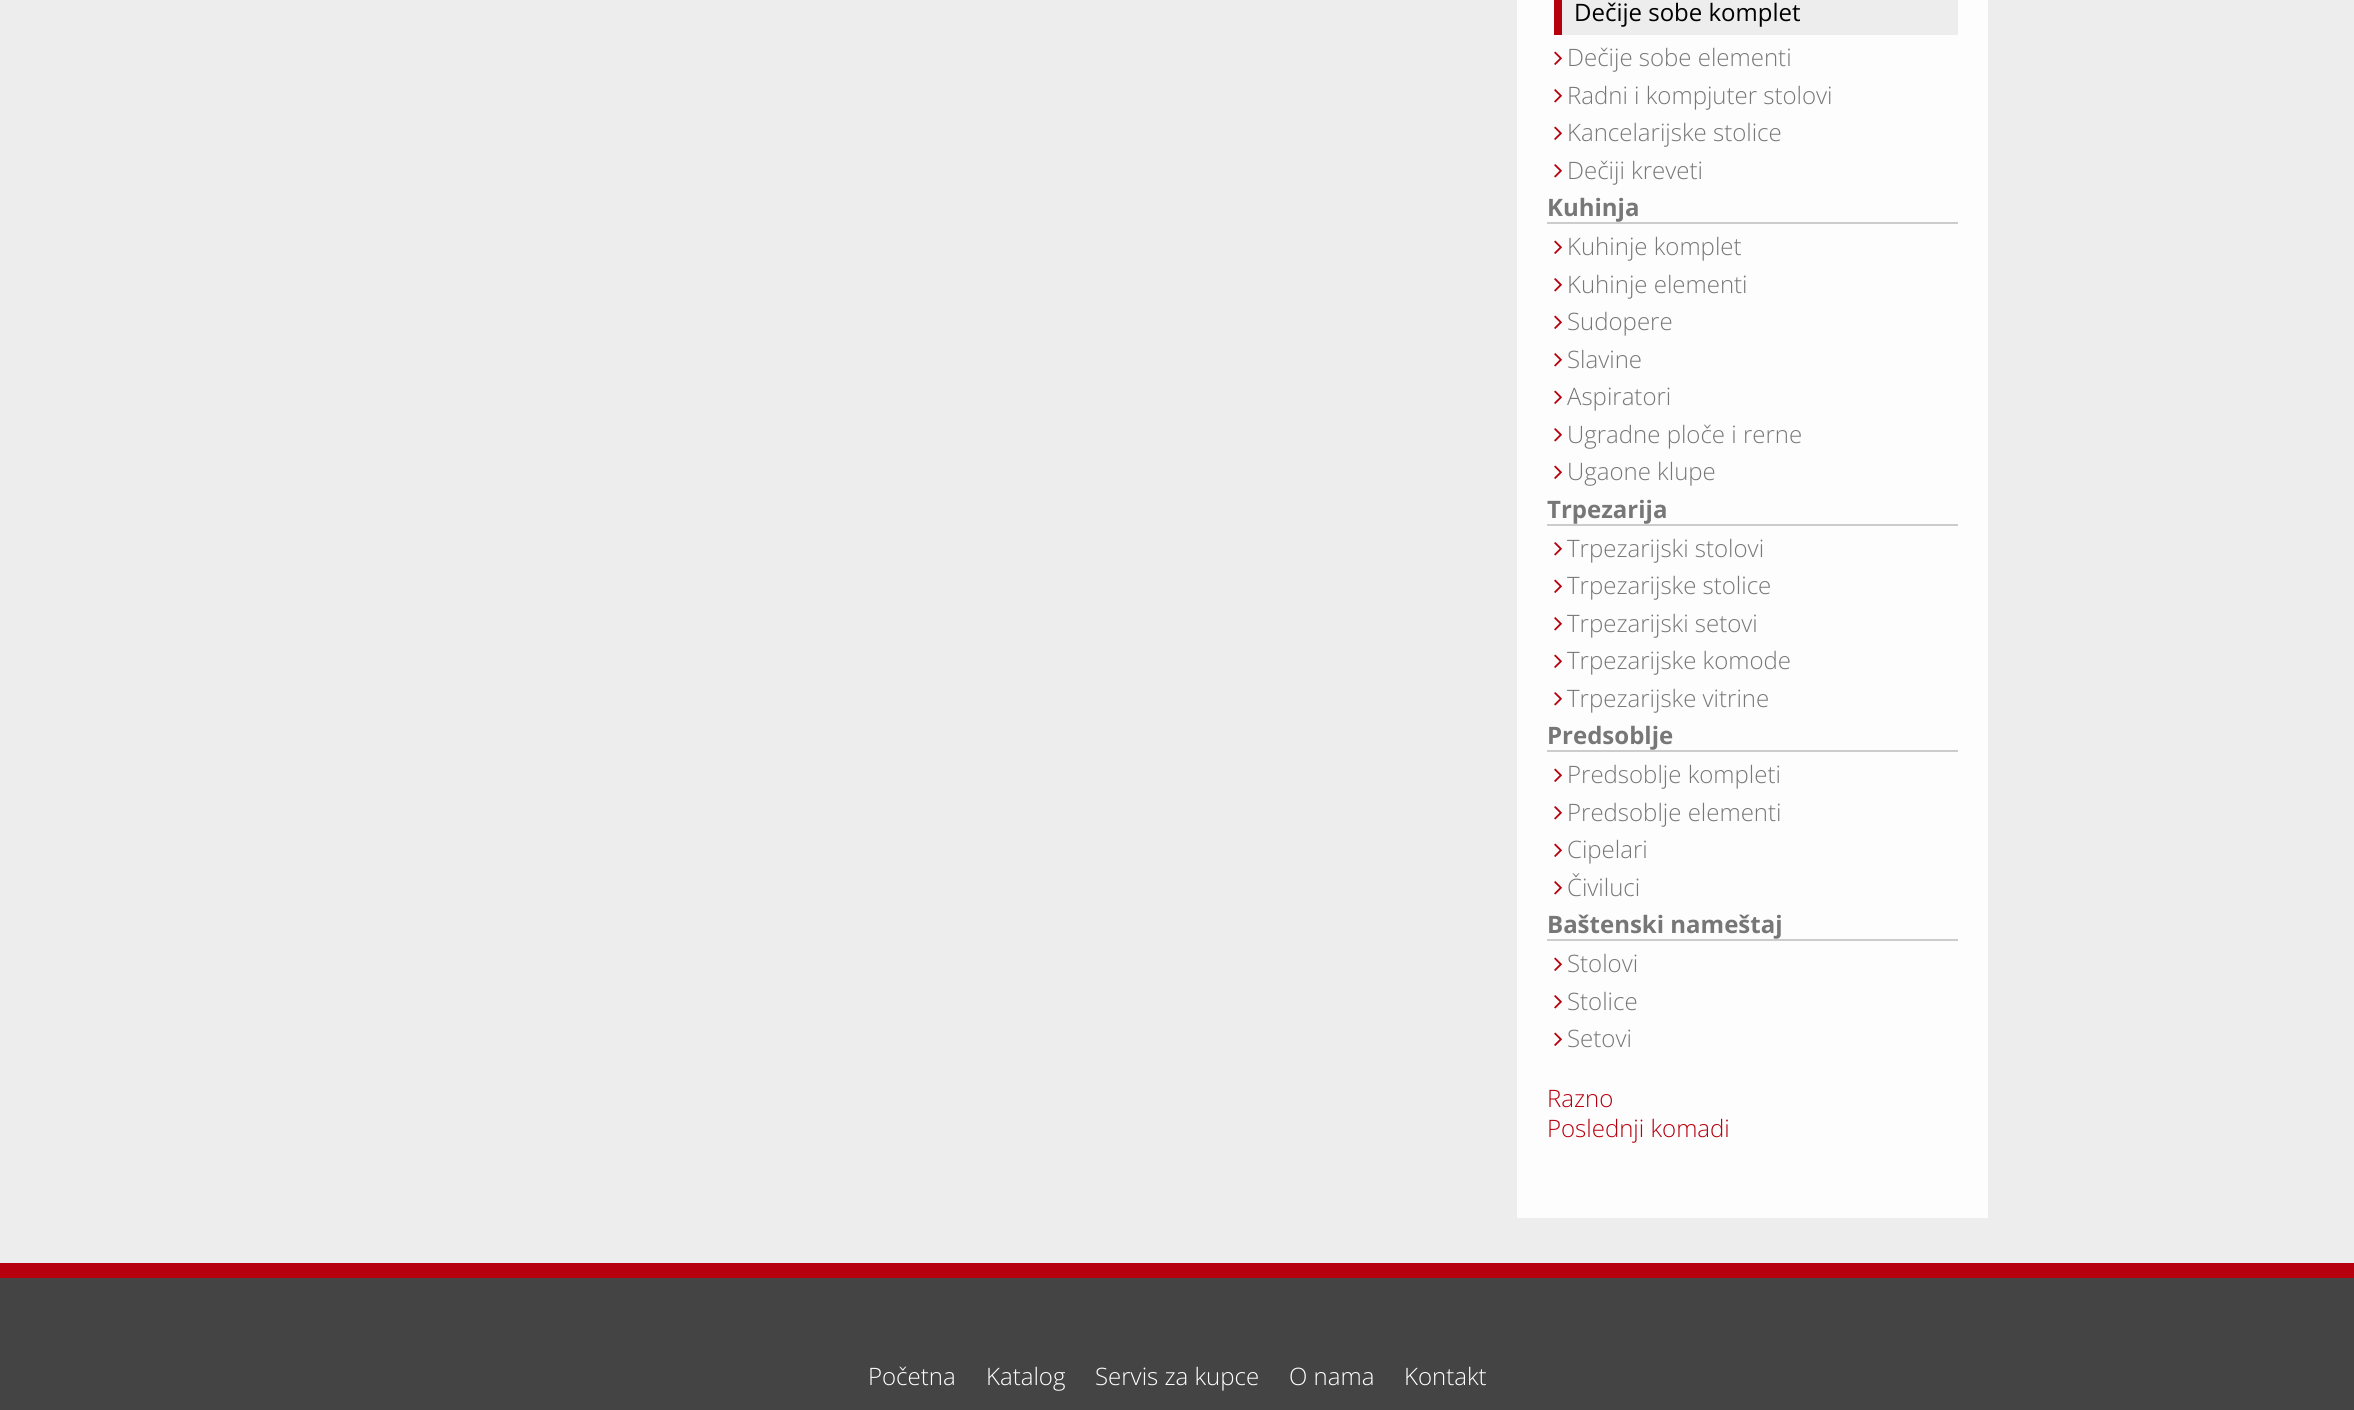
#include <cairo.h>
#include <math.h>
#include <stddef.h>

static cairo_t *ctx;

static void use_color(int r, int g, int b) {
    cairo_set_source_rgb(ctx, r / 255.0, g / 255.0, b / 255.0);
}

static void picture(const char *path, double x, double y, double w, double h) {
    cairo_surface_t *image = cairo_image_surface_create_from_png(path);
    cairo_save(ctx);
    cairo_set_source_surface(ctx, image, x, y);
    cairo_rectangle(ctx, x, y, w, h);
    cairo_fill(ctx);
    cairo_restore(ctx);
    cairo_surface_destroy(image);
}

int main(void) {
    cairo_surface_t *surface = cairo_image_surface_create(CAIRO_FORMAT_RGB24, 2354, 1410);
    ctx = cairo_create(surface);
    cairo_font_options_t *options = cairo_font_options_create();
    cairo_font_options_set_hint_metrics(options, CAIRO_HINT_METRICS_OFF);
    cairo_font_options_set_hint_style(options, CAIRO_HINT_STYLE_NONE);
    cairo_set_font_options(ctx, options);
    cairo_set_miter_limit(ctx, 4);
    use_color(237, 237, 237);
    cairo_paint(ctx);
    cairo_set_source_rgba(ctx, 1, 1, 1, 0.9);
    cairo_rectangle(ctx, 1517, 0, 471, 1218);
    cairo_fill(ctx);
    use_color(237, 237, 237);
    cairo_rectangle(ctx, 1562, 0, 396, 35);
    cairo_fill(ctx);
    use_color(183, 0, 13);
    cairo_rectangle(ctx, 1554, 0, 8, 35);
    cairo_fill(ctx);
    cairo_select_font_face(ctx, "Open Sans", CAIRO_FONT_SLANT_NORMAL, CAIRO_FONT_WEIGHT_NORMAL);
    cairo_set_font_size(ctx, 24);
    use_color(0, 0, 0);
    cairo_move_to(ctx, 1574, 21);
    cairo_show_text(ctx, "Dečije sobe komplet");
    picture("img1.png", 1554, 51, 8, 14);
    cairo_select_font_face(ctx, "Open Sans Light", CAIRO_FONT_SLANT_NORMAL, CAIRO_FONT_WEIGHT_NORMAL);
    use_color(119, 119, 119);
    cairo_move_to(ctx, 1567, 66);
    cairo_show_text(ctx, "Dečije sobe elementi");
    picture("img2.png", 1554, 89, 8, 14);
    cairo_move_to(ctx, 1567, 104);
    cairo_show_text(ctx, "Radni i kompjuter stolovi");
    picture("img1.png", 1554, 126, 8, 14);
    cairo_move_to(ctx, 1567, 141);
    cairo_show_text(ctx, "Kancelarijske stolice");
    picture("img2.png", 1554, 164, 8, 14);
    cairo_move_to(ctx, 1567, 179);
    cairo_show_text(ctx, "Dečiji kreveti");
    use_color(204, 204, 204);
    cairo_rectangle(ctx, 1547, 222, 411, 2);
    cairo_fill(ctx);
    cairo_select_font_face(ctx, "Open Sans", CAIRO_FONT_SLANT_NORMAL, CAIRO_FONT_WEIGHT_BOLD);
    use_color(119, 119, 119);
    cairo_move_to(ctx, 1547, 216);
    cairo_show_text(ctx, "Kuhinja");
    picture("img1.png", 1554, 240, 8, 14);
    cairo_select_font_face(ctx, "Open Sans Light", CAIRO_FONT_SLANT_NORMAL, CAIRO_FONT_WEIGHT_NORMAL);
    cairo_move_to(ctx, 1567, 255);
    cairo_show_text(ctx, "Kuhinje komplet");
    picture("img2.png", 1554, 278, 8, 14);
    cairo_move_to(ctx, 1567, 293);
    cairo_show_text(ctx, "Kuhinje elementi");
    picture("img1.png", 1554, 315, 8, 14);
    cairo_move_to(ctx, 1567, 330);
    cairo_show_text(ctx, "Sudopere");
    picture("img2.png", 1554, 353, 8, 14);
    cairo_move_to(ctx, 1567, 368);
    cairo_show_text(ctx, "Slavine");
    picture("img1.png", 1554, 390, 8, 14);
    cairo_move_to(ctx, 1567, 405);
    cairo_show_text(ctx, "Aspiratori");
    picture("img2.png", 1554, 428, 8, 14);
    cairo_move_to(ctx, 1567, 443);
    cairo_show_text(ctx, "Ugradne ploče i rerne");
    picture("img1.png", 1554, 465, 8, 14);
    cairo_move_to(ctx, 1567, 480);
    cairo_show_text(ctx, "Ugaone klupe");
    use_color(204, 204, 204);
    cairo_rectangle(ctx, 1547, 524, 411, 2);
    cairo_fill(ctx);
    cairo_select_font_face(ctx, "Open Sans", CAIRO_FONT_SLANT_NORMAL, CAIRO_FONT_WEIGHT_BOLD);
    use_color(119, 119, 119);
    cairo_move_to(ctx, 1547, 518);
    cairo_show_text(ctx, "Trpezarija");
    picture("img2.png", 1554, 542, 8, 14);
    cairo_select_font_face(ctx, "Open Sans Light", CAIRO_FONT_SLANT_NORMAL, CAIRO_FONT_WEIGHT_NORMAL);
    cairo_move_to(ctx, 1567, 557);
    cairo_show_text(ctx, "Trpezarijski stolovi");
    picture("img1.png", 1554, 579, 8, 14);
    cairo_move_to(ctx, 1567, 594);
    cairo_show_text(ctx, "Trpezarijske stolice");
    picture("img2.png", 1554, 617, 8, 14);
    cairo_move_to(ctx, 1567, 632);
    cairo_show_text(ctx, "Trpezarijski setovi");
    picture("img1.png", 1554, 654, 8, 14);
    cairo_move_to(ctx, 1567, 669);
    cairo_show_text(ctx, "Trpezarijske komode");
    picture("img2.png", 1554, 692, 8, 14);
    cairo_move_to(ctx, 1567, 707);
    cairo_show_text(ctx, "Trpezarijske vitrine");
    use_color(204, 204, 204);
    cairo_rectangle(ctx, 1547, 750, 411, 2);
    cairo_fill(ctx);
    cairo_select_font_face(ctx, "Open Sans", CAIRO_FONT_SLANT_NORMAL, CAIRO_FONT_WEIGHT_BOLD);
    use_color(119, 119, 119);
    cairo_move_to(ctx, 1547, 744);
    cairo_show_text(ctx, "Predsoblje");
    picture("img1.png", 1554, 768, 8, 14);
    cairo_select_font_face(ctx, "Open Sans Light", CAIRO_FONT_SLANT_NORMAL, CAIRO_FONT_WEIGHT_NORMAL);
    cairo_move_to(ctx, 1567, 783);
    cairo_show_text(ctx, "Predsoblje kompleti");
    picture("img2.png", 1554, 806, 8, 14);
    cairo_move_to(ctx, 1567, 821);
    cairo_show_text(ctx, "Predsoblje elementi");
    picture("img1.png", 1554, 843, 8, 14);
    cairo_move_to(ctx, 1567, 858);
    cairo_show_text(ctx, "Cipelari");
    picture("img2.png", 1554, 881, 8, 14);
    cairo_move_to(ctx, 1567, 896);
    cairo_show_text(ctx, "Čiviluci");
    use_color(204, 204, 204);
    cairo_rectangle(ctx, 1547, 939, 411, 2);
    cairo_fill(ctx);
    cairo_select_font_face(ctx, "Open Sans", CAIRO_FONT_SLANT_NORMAL, CAIRO_FONT_WEIGHT_BOLD);
    use_color(119, 119, 119);
    cairo_move_to(ctx, 1547, 933);
    cairo_show_text(ctx, "Baštenski nameštaj");
    picture("img1.png", 1554, 957, 8, 14);
    cairo_select_font_face(ctx, "Open Sans Light", CAIRO_FONT_SLANT_NORMAL, CAIRO_FONT_WEIGHT_NORMAL);
    cairo_move_to(ctx, 1567, 972);
    cairo_show_text(ctx, "Stolovi");
    picture("img2.png", 1554, 995, 8, 14);
    cairo_move_to(ctx, 1567, 1010);
    cairo_show_text(ctx, "Stolice");
    picture("img1.png", 1554, 1032, 8, 14);
    cairo_move_to(ctx, 1567, 1047);
    cairo_show_text(ctx, "Setovi");
    use_color(183, 0, 13);
    cairo_move_to(ctx, 1547, 1107);
    cairo_show_text(ctx, "Razno");
    cairo_move_to(ctx, 1547, 1137);
    cairo_show_text(ctx, "Poslednji komadi");
    cairo_rectangle(ctx, 0, 1263, 2354, 15);
    cairo_fill(ctx);
    use_color(68, 68, 68);
    cairo_rectangle(ctx, 0, 1278, 2354, 132);
    cairo_fill(ctx);
    use_color(255, 255, 255);
    cairo_move_to(ctx, 868, 1385);
    cairo_show_text(ctx, "Početna");
    cairo_move_to(ctx, 986, 1385);
    cairo_show_text(ctx, "Katalog");
    cairo_move_to(ctx, 1095, 1385);
    cairo_show_text(ctx, "Servis za kupce");
    cairo_move_to(ctx, 1289, 1385);
    cairo_show_text(ctx, "O nama");
    cairo_move_to(ctx, 1404, 1385);
    cairo_show_text(ctx, "Kontakt");
    cairo_surface_write_to_png(surface, "result.png");
    cairo_font_options_destroy(options);
    cairo_destroy(ctx);
    cairo_surface_destroy(surface);
    return 0;
}
